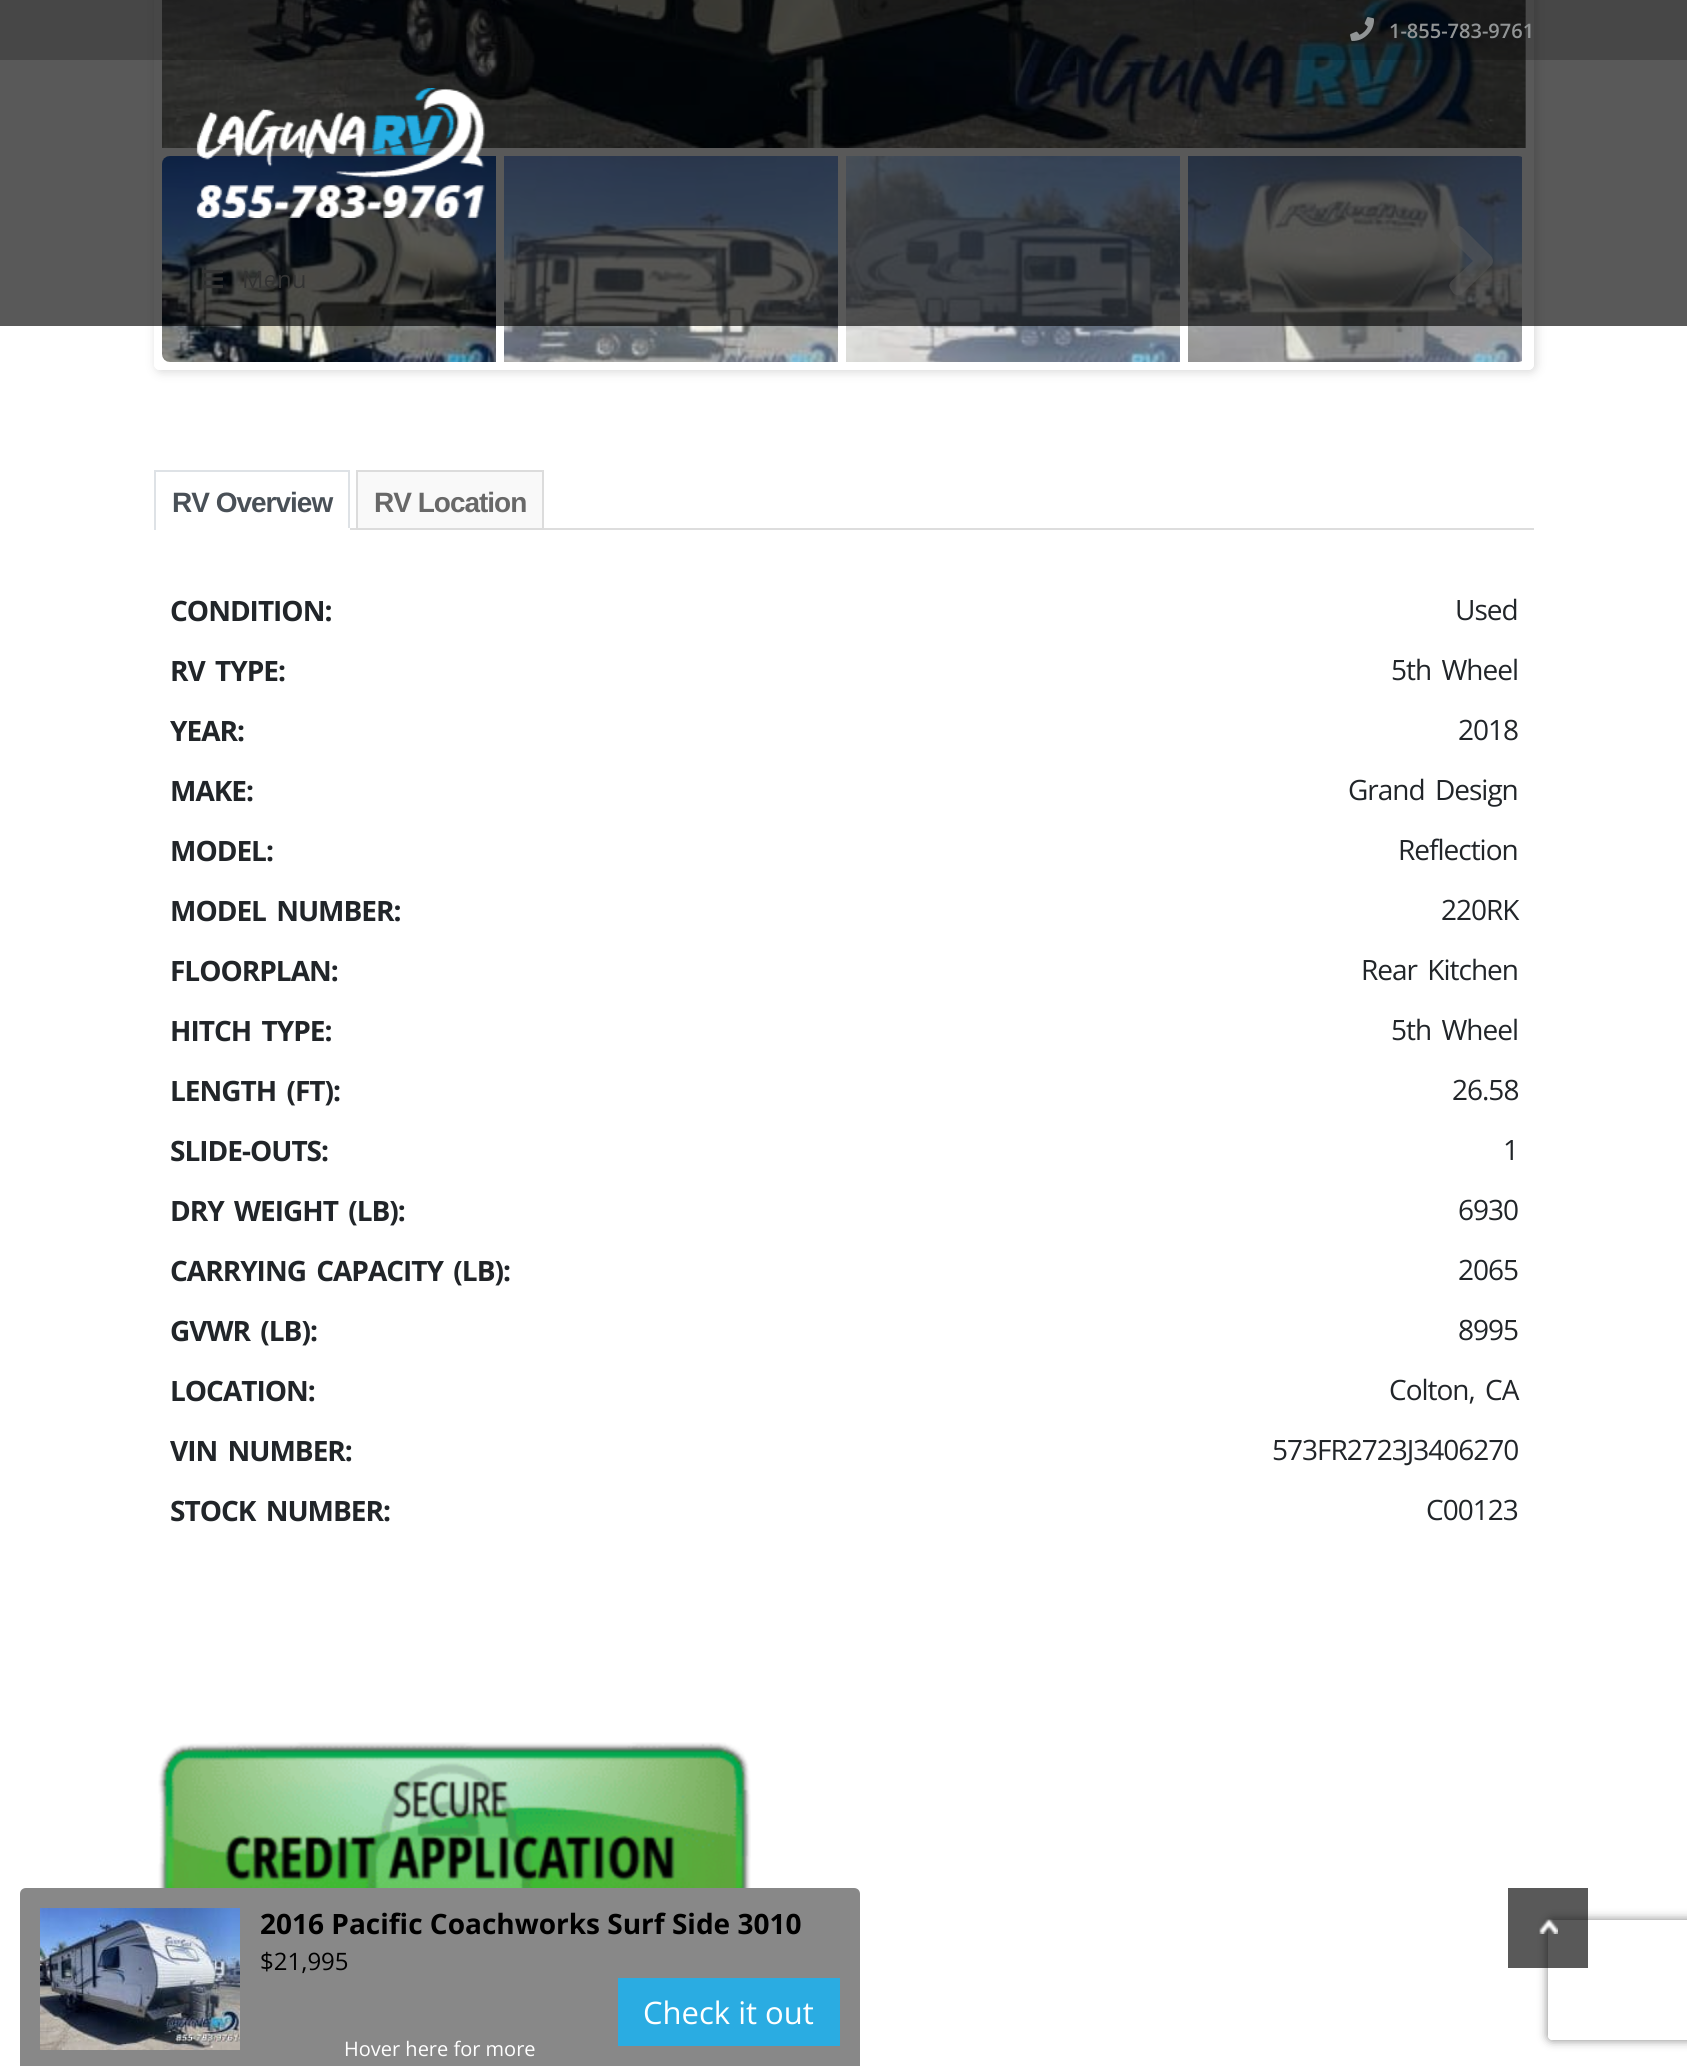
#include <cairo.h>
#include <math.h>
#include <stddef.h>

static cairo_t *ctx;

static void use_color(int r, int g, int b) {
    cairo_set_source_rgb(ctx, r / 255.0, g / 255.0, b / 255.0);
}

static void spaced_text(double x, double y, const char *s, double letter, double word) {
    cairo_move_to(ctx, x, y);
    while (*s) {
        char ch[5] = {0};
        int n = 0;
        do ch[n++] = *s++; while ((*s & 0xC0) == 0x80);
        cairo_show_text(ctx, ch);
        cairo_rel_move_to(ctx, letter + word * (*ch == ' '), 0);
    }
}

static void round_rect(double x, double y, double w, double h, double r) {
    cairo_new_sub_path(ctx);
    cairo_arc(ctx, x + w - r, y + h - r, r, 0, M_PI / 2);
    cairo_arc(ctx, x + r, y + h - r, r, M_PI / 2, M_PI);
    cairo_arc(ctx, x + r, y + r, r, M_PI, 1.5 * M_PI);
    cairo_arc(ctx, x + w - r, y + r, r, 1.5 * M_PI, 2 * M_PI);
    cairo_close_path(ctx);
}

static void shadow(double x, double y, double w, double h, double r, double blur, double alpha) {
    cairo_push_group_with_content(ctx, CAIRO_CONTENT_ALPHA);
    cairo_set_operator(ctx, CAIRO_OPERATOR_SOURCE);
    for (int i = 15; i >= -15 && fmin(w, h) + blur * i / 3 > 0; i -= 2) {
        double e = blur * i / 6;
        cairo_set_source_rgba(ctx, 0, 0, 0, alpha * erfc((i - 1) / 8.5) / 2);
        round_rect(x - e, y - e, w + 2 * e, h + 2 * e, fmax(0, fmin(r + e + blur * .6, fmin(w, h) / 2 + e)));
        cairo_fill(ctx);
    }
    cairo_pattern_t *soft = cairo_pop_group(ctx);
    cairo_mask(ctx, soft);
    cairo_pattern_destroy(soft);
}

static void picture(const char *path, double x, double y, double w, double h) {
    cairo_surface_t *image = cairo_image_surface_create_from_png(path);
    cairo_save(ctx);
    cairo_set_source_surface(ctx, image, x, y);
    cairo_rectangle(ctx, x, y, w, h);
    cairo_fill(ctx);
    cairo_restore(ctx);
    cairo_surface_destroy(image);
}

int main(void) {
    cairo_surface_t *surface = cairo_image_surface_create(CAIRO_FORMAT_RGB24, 1687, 2068);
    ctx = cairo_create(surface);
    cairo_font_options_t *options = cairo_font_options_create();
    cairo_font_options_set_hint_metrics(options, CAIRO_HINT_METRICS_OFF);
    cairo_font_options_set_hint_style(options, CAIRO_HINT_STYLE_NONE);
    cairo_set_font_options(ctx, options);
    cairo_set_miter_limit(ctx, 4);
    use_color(255, 255, 255);
    cairo_paint(ctx);
    cairo_save(ctx);
    cairo_set_fill_rule(ctx, CAIRO_FILL_RULE_EVEN_ODD);
    cairo_new_path(ctx);
    cairo_move_to(ctx, 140, 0);
    cairo_line_to(ctx, 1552, 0);
    cairo_line_to(ctx, 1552, 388);
    cairo_line_to(ctx, 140, 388);
    cairo_close_path(ctx);
    cairo_move_to(ctx, 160, -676);
    cairo_line_to(ctx, 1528, -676);
    cairo_curve_to(ctx, 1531.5, -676, 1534, -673.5, 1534, -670);
    cairo_line_to(ctx, 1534, 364);
    cairo_curve_to(ctx, 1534, 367.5, 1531.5, 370, 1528, 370);
    cairo_line_to(ctx, 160, 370);
    cairo_curve_to(ctx, 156.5, 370, 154, 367.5, 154, 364);
    cairo_line_to(ctx, 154, -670);
    cairo_curve_to(ctx, 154, -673.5, 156.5, -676, 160, -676);
    cairo_close_path(ctx);
    cairo_clip(ctx);
    use_color(204, 204, 204);
    shadow(156, -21, 1380, 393, 6, 5, 0.75);
    cairo_restore(ctx);
    round_rect(158, -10, 1372, 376, 2);
    use_color(255, 255, 255);
    cairo_set_line_width(ctx, 8);
    cairo_stroke(ctx);
    picture("img4.png", 162, 0, 1364, 148);
    picture("img5.png", 162, 156, 334, 206);
    picture("img6.png", 504, 156, 334, 206);
    picture("img7.png", 846, 156, 334, 206);
    picture("img8.png", 1188, 156, 334, 206);
    cairo_set_source_rgba(ctx, 1, 1, 1, 0.5);
    cairo_new_path(ctx);
    cairo_move_to(ctx, 1493, 261);
    cairo_curve_to(ctx, 1493, 265, 1489, 267, 1487, 270);
    cairo_line_to(ctx, 1467, 289);
    cairo_curve_to(ctx, 1462, 294, 1459, 298, 1453, 293);
    cairo_line_to(ctx, 1450, 288);
    cairo_curve_to(ctx, 1447, 283, 1455, 278, 1458, 275);
    cairo_line_to(ctx, 1473, 261);
    cairo_line_to(ctx, 1458, 246);
    cairo_curve_to(ctx, 1455, 243, 1447, 238, 1450, 233);
    cairo_line_to(ctx, 1453, 229);
    cairo_curve_to(ctx, 1459, 223, 1462, 227, 1467, 232);
    cairo_line_to(ctx, 1487, 252);
    cairo_curve_to(ctx, 1489, 254, 1493, 257, 1493, 261);
    cairo_close_path(ctx);
    cairo_fill(ctx);
    cairo_set_source_rgba(ctx, 0, 0, 0, 0.65);
    cairo_rectangle(ctx, 0, 0, 1687, 326);
    cairo_fill(ctx);
    cairo_set_source_rgba(ctx, 0, 0, 0, 0.2);
    cairo_rectangle(ctx, 0, 0, 1687, 60);
    cairo_fill(ctx);
    picture("img1.png", 1350, 17, 24, 24);
    cairo_select_font_face(ctx, "Open Sans SemiBold", CAIRO_FONT_SLANT_NORMAL, CAIRO_FONT_WEIGHT_NORMAL);
    cairo_set_font_size(ctx, 20);
    use_color(146, 149, 150);
    cairo_move_to(ctx, 1389, 38);
    cairo_show_text(ctx, "1-855-783-9761");
    picture("img2.png", 196, 88, 289, 130);
    picture("img3.png", 202, 269, 21, 20);
    cairo_select_font_face(ctx, "Open Sans", CAIRO_FONT_SLANT_NORMAL, CAIRO_FONT_WEIGHT_NORMAL);
    cairo_set_font_size(ctx, 24);
    use_color(51, 51, 51);
    cairo_move_to(ctx, 242, 288);
    cairo_show_text(ctx, "Menu");
    use_color(221, 221, 221);
    cairo_rectangle(ctx, 350, 528, 1184, 2);
    cairo_fill(ctx);
    use_color(222, 226, 230);
    cairo_rectangle(ctx, 154, 470, 196, 2);
    cairo_fill(ctx);
    cairo_rectangle(ctx, 348, 470, 2, 60);
    cairo_fill(ctx);
    use_color(255, 255, 255);
    cairo_rectangle(ctx, 348, 528, 2, 2);
    cairo_fill(ctx);
    use_color(222, 226, 230);
    cairo_rectangle(ctx, 154, 470, 2, 60);
    cairo_fill(ctx);
    cairo_select_font_face(ctx, "Liberation Sans", CAIRO_FONT_SLANT_NORMAL, CAIRO_FONT_WEIGHT_BOLD);
    cairo_set_font_size(ctx, 28);
    use_color(73, 80, 87);
    spaced_text(172, 512, "RV Overview", -1, 0);
    use_color(249, 249, 249);
    cairo_rectangle(ctx, 357, 471, 186, 58);
    cairo_fill_preserve(ctx);
    use_color(220, 220, 220);
    cairo_set_line_width(ctx, 2);
    cairo_stroke(ctx);
    use_color(104, 104, 104);
    spaced_text(374, 512, "RV Location", -1, 0);
    cairo_select_font_face(ctx, "Open Sans", CAIRO_FONT_SLANT_NORMAL, CAIRO_FONT_WEIGHT_BOLD);
    use_color(33, 37, 41);
    spaced_text(170, 621, "CONDITION:", -1, 0);
    cairo_select_font_face(ctx, "Open Sans", CAIRO_FONT_SLANT_NORMAL, CAIRO_FONT_WEIGHT_NORMAL);
    spaced_text(1455, 620, "Used", -1, 0);
    cairo_select_font_face(ctx, "Open Sans", CAIRO_FONT_SLANT_NORMAL, CAIRO_FONT_WEIGHT_BOLD);
    spaced_text(170, 681, "RV TYPE:", -1, 4);
    cairo_select_font_face(ctx, "Open Sans", CAIRO_FONT_SLANT_NORMAL, CAIRO_FONT_WEIGHT_NORMAL);
    spaced_text(1391, 680, "5th Wheel", -1, 4);
    cairo_select_font_face(ctx, "Open Sans", CAIRO_FONT_SLANT_NORMAL, CAIRO_FONT_WEIGHT_BOLD);
    spaced_text(170, 741, "YEAR:", -1, 0);
    cairo_select_font_face(ctx, "Open Sans", CAIRO_FONT_SLANT_NORMAL, CAIRO_FONT_WEIGHT_NORMAL);
    spaced_text(1458, 740, "2018", -1, 0);
    cairo_select_font_face(ctx, "Open Sans", CAIRO_FONT_SLANT_NORMAL, CAIRO_FONT_WEIGHT_BOLD);
    spaced_text(170, 801, "MAKE:", -1, 0);
    cairo_select_font_face(ctx, "Open Sans", CAIRO_FONT_SLANT_NORMAL, CAIRO_FONT_WEIGHT_NORMAL);
    spaced_text(1348, 800, "Grand Design", -1, 4);
    cairo_select_font_face(ctx, "Open Sans", CAIRO_FONT_SLANT_NORMAL, CAIRO_FONT_WEIGHT_BOLD);
    spaced_text(170, 861, "MODEL:", -1, 0);
    cairo_select_font_face(ctx, "Open Sans", CAIRO_FONT_SLANT_NORMAL, CAIRO_FONT_WEIGHT_NORMAL);
    spaced_text(1398, 860, "Reflection", -1, 0);
    cairo_select_font_face(ctx, "Open Sans", CAIRO_FONT_SLANT_NORMAL, CAIRO_FONT_WEIGHT_BOLD);
    spaced_text(170, 921, "MODEL NUMBER:", -1, 4);
    cairo_select_font_face(ctx, "Open Sans", CAIRO_FONT_SLANT_NORMAL, CAIRO_FONT_WEIGHT_NORMAL);
    spaced_text(1441, 920, "220RK", -1, 0);
    cairo_select_font_face(ctx, "Open Sans", CAIRO_FONT_SLANT_NORMAL, CAIRO_FONT_WEIGHT_BOLD);
    spaced_text(170, 981, "FLOORPLAN:", -1, 0);
    cairo_select_font_face(ctx, "Open Sans", CAIRO_FONT_SLANT_NORMAL, CAIRO_FONT_WEIGHT_NORMAL);
    spaced_text(1361, 980, "Rear Kitchen", -1, 4);
    cairo_select_font_face(ctx, "Open Sans", CAIRO_FONT_SLANT_NORMAL, CAIRO_FONT_WEIGHT_BOLD);
    spaced_text(170, 1041, "HITCH TYPE:", -1, 4);
    cairo_select_font_face(ctx, "Open Sans", CAIRO_FONT_SLANT_NORMAL, CAIRO_FONT_WEIGHT_NORMAL);
    spaced_text(1391, 1040, "5th Wheel", -1, 4);
    cairo_select_font_face(ctx, "Open Sans", CAIRO_FONT_SLANT_NORMAL, CAIRO_FONT_WEIGHT_BOLD);
    spaced_text(170, 1101, "LENGTH (FT):", -1, 4);
    cairo_select_font_face(ctx, "Open Sans", CAIRO_FONT_SLANT_NORMAL, CAIRO_FONT_WEIGHT_NORMAL);
    spaced_text(1452, 1100, "26.58", -1, 0);
    cairo_select_font_face(ctx, "Open Sans", CAIRO_FONT_SLANT_NORMAL, CAIRO_FONT_WEIGHT_BOLD);
    spaced_text(170, 1161, "SLIDE-OUTS:", -1, 0);
    cairo_select_font_face(ctx, "Open Sans", CAIRO_FONT_SLANT_NORMAL, CAIRO_FONT_WEIGHT_NORMAL);
    spaced_text(1503, 1160, "1", -1, 0);
    cairo_select_font_face(ctx, "Open Sans", CAIRO_FONT_SLANT_NORMAL, CAIRO_FONT_WEIGHT_BOLD);
    spaced_text(170, 1221, "DRY WEIGHT (LB):", -1, 4);
    cairo_select_font_face(ctx, "Open Sans", CAIRO_FONT_SLANT_NORMAL, CAIRO_FONT_WEIGHT_NORMAL);
    spaced_text(1458, 1220, "6930", -1, 0);
    cairo_select_font_face(ctx, "Open Sans", CAIRO_FONT_SLANT_NORMAL, CAIRO_FONT_WEIGHT_BOLD);
    spaced_text(170, 1281, "CARRYING CAPACITY (LB):", -1, 4);
    cairo_select_font_face(ctx, "Open Sans", CAIRO_FONT_SLANT_NORMAL, CAIRO_FONT_WEIGHT_NORMAL);
    spaced_text(1458, 1280, "2065", -1, 0);
    cairo_select_font_face(ctx, "Open Sans", CAIRO_FONT_SLANT_NORMAL, CAIRO_FONT_WEIGHT_BOLD);
    spaced_text(170, 1341, "GVWR (LB):", -1, 4);
    cairo_select_font_face(ctx, "Open Sans", CAIRO_FONT_SLANT_NORMAL, CAIRO_FONT_WEIGHT_NORMAL);
    spaced_text(1458, 1340, "8995", -1, 0);
    cairo_select_font_face(ctx, "Open Sans", CAIRO_FONT_SLANT_NORMAL, CAIRO_FONT_WEIGHT_BOLD);
    spaced_text(170, 1401, "LOCATION:", -1, 0);
    cairo_select_font_face(ctx, "Open Sans", CAIRO_FONT_SLANT_NORMAL, CAIRO_FONT_WEIGHT_NORMAL);
    spaced_text(1389, 1400, "Colton, CA", -1, 4);
    cairo_select_font_face(ctx, "Open Sans", CAIRO_FONT_SLANT_NORMAL, CAIRO_FONT_WEIGHT_BOLD);
    spaced_text(170, 1461, "VIN NUMBER:", -1, 4);
    cairo_select_font_face(ctx, "Open Sans", CAIRO_FONT_SLANT_NORMAL, CAIRO_FONT_WEIGHT_NORMAL);
    spaced_text(1272, 1460, "573FR2723J3406270", -1, 0);
    cairo_select_font_face(ctx, "Open Sans", CAIRO_FONT_SLANT_NORMAL, CAIRO_FONT_WEIGHT_BOLD);
    spaced_text(170, 1521, "STOCK NUMBER:", -1, 4);
    cairo_select_font_face(ctx, "Open Sans", CAIRO_FONT_SLANT_NORMAL, CAIRO_FONT_WEIGHT_NORMAL);
    spaced_text(1426, 1520, "C00123", -1, 0);
    picture("img9.png", 158, 1742, 593, 146);
    cairo_save(ctx);
    cairo_set_fill_rule(ctx, CAIRO_FILL_RULE_EVEN_ODD);
    cairo_new_path(ctx);
    cairo_move_to(ctx, 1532, 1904);
    cairo_line_to(ctx, 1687, 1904);
    cairo_line_to(ctx, 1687, 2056);
    cairo_line_to(ctx, 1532, 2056);
    cairo_close_path(ctx);
    cairo_move_to(ctx, 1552, 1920);
    cairo_line_to(ctx, 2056, 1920);
    cairo_curve_to(ctx, 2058, 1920, 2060, 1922, 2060, 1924);
    cairo_line_to(ctx, 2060, 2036);
    cairo_curve_to(ctx, 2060, 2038, 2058, 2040, 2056, 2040);
    cairo_line_to(ctx, 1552, 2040);
    cairo_curve_to(ctx, 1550, 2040, 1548, 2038, 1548, 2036);
    cairo_line_to(ctx, 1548, 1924);
    cairo_curve_to(ctx, 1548, 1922, 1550, 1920, 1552, 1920);
    cairo_close_path(ctx);
    cairo_clip(ctx);
    use_color(128, 128, 128);
    shadow(1548, 1920, 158, 120, 4, 5, 1);
    cairo_restore(ctx);
    cairo_set_source_rgba(ctx, 0, 0, 0, 0.65);
    cairo_rectangle(ctx, 1508, 1888, 80, 80);
    cairo_fill(ctx);
    picture("img10.png", 1539, 1919, 19, 15);
    use_color(136, 136, 136);
    cairo_new_path(ctx);
    cairo_move_to(ctx, 26, 1888);
    cairo_line_to(ctx, 854, 1888);
    cairo_curve_to(ctx, 857.5, 1888, 860, 1890.5, 860, 1894);
    cairo_line_to(ctx, 860, 2068);
    cairo_line_to(ctx, 20, 2068);
    cairo_line_to(ctx, 20, 1894);
    cairo_curve_to(ctx, 20, 1890.5, 22.5, 1888, 26, 1888);
    cairo_close_path(ctx);
    cairo_fill(ctx);
    use_color(255, 255, 255);
    cairo_rectangle(ctx, 20, 2066, 840, 2);
    cairo_fill(ctx);
    picture("img11.png", 40, 1908, 200, 142);
    cairo_select_font_face(ctx, "Open Sans", CAIRO_FONT_SLANT_NORMAL, CAIRO_FONT_WEIGHT_BOLD);
    use_color(0, 0, 0);
    cairo_move_to(ctx, 260, 1934);
    cairo_show_text(ctx, "2016 Pacific Coachworks Surf Side 3010");
    cairo_select_font_face(ctx, "Open Sans", CAIRO_FONT_SLANT_NORMAL, CAIRO_FONT_WEIGHT_NORMAL);
    cairo_set_font_size(ctx, 24);
    cairo_move_to(ctx, 260, 1970);
    cairo_show_text(ctx, "$21,995");
    use_color(42, 172, 226);
    cairo_rectangle(ctx, 618, 1978, 222, 68);
    cairo_fill(ctx);
    cairo_set_font_size(ctx, 31);
    use_color(255, 255, 255);
    cairo_move_to(ctx, 643, 2024);
    cairo_show_text(ctx, "Check it out");
    cairo_set_font_size(ctx, 20);
    cairo_move_to(ctx, 344, 2056);
    cairo_show_text(ctx, "Hover here for more");
    cairo_surface_write_to_png(surface, "result.png");
    cairo_font_options_destroy(options);
    cairo_destroy(ctx);
    cairo_surface_destroy(surface);
    return 0;
}
